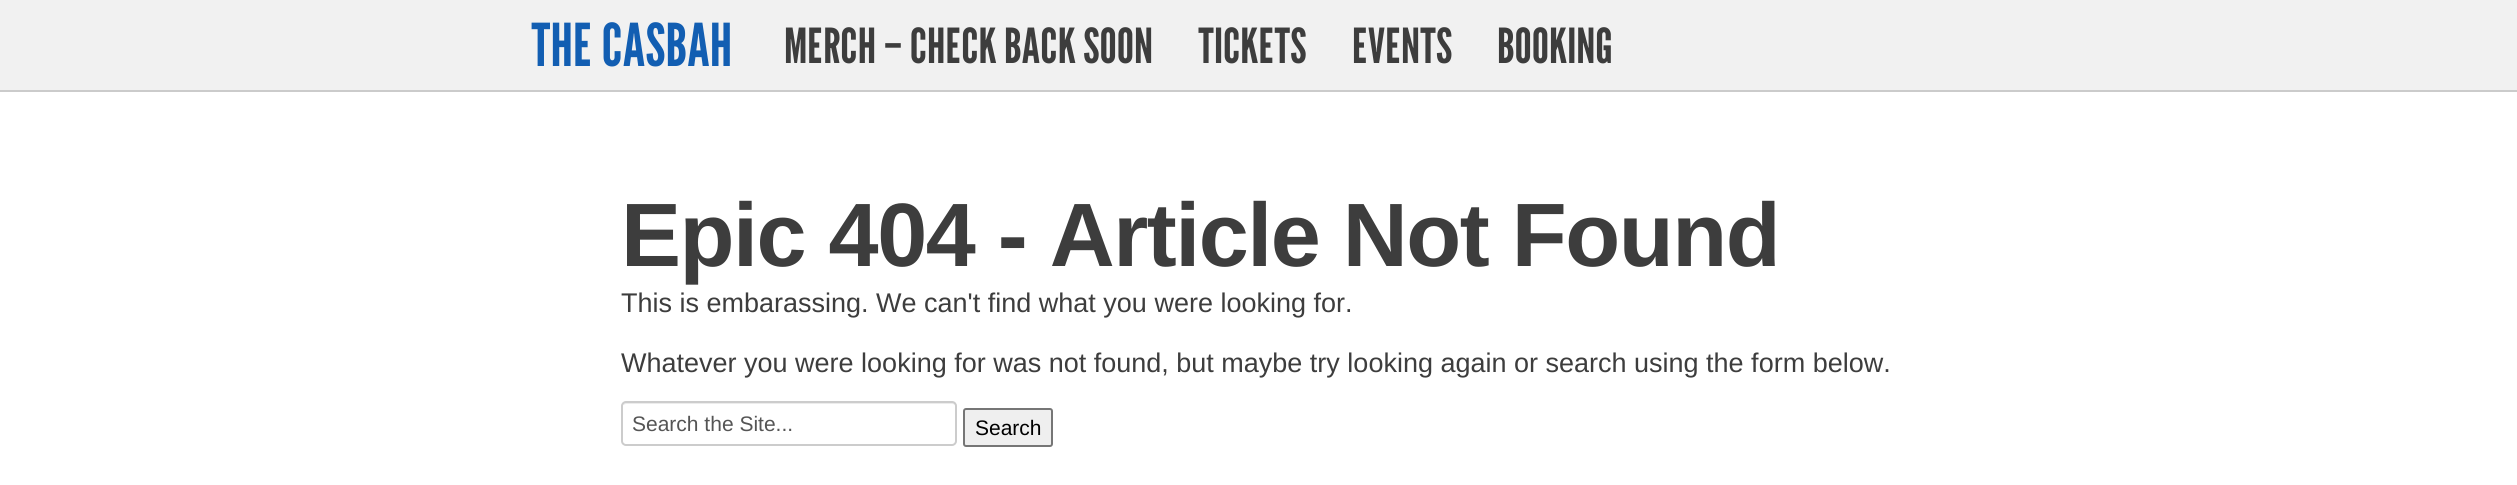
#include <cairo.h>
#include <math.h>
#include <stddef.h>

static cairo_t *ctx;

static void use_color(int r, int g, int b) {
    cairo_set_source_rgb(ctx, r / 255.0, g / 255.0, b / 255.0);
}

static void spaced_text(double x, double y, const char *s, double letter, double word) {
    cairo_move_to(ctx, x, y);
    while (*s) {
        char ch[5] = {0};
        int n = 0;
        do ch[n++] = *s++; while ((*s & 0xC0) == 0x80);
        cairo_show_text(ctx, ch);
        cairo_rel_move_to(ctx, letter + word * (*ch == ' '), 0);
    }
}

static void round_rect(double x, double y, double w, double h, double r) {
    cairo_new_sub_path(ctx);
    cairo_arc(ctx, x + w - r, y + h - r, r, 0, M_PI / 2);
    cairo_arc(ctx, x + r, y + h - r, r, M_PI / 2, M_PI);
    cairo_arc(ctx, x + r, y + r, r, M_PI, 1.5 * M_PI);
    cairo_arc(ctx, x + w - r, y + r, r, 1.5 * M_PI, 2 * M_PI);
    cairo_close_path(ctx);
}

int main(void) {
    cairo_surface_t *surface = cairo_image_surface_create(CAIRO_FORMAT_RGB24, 2517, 485);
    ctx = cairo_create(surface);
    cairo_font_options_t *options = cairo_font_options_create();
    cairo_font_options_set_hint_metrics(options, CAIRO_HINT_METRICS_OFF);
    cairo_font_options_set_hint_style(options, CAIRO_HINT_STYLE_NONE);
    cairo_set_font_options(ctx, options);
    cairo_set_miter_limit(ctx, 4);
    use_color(255, 255, 255);
    cairo_paint(ctx);
    use_color(241, 241, 241);
    cairo_rectangle(ctx, 0, 0, 2517, 90);
    cairo_fill(ctx);
    use_color(203, 203, 203);
    cairo_rectangle(ctx, 0, 90, 2517, 2);
    cairo_fill(ctx);
    cairo_select_font_face(ctx, "League Gothic", CAIRO_FONT_SLANT_NORMAL, CAIRO_FONT_WEIGHT_NORMAL);
    cairo_set_font_size(ctx, 59);
    use_color(18, 94, 178);
    cairo_move_to(ctx, 531, 66);
    cairo_show_text(ctx, "THE CASBAH");
    cairo_set_font_size(ctx, 48.25);
    use_color(61, 61, 61);
    cairo_move_to(ctx, 784, 63);
    cairo_show_text(ctx, "MERCH – CHECK BACK SOON");
    cairo_move_to(ctx, 1198, 63);
    cairo_show_text(ctx, "TICKETS");
    cairo_move_to(ctx, 1352, 63);
    cairo_show_text(ctx, "EVENTS");
    cairo_move_to(ctx, 1497, 63);
    cairo_show_text(ctx, "BOOKING");
    cairo_select_font_face(ctx, "Liberation Sans", CAIRO_FONT_SLANT_NORMAL, CAIRO_FONT_WEIGHT_BOLD);
    cairo_set_font_size(ctx, 90);
    spaced_text(621, 266, "Epic 404 - Article Not Found", -1.5, 0);
    cairo_select_font_face(ctx, "Liberation Sans", CAIRO_FONT_SLANT_NORMAL, CAIRO_FONT_WEIGHT_NORMAL);
    cairo_set_font_size(ctx, 27);
    cairo_move_to(ctx, 621, 312);
    cairo_show_text(ctx, "This is embarassing. We can't find what you were looking for.");
    cairo_move_to(ctx, 621, 372);
    cairo_show_text(ctx, "Whatever you were looking for was not found, but maybe try looking again or search using the form below.");
    use_color(236, 236, 236);
    cairo_new_path(ctx);
    cairo_move_to(ctx, 626, 404);
    cairo_line_to(ctx, 952, 404);
    cairo_curve_to(ctx, 954, 404, 956, 405, 956, 406);
    cairo_curve_to(ctx, 956, 404, 955, 402, 953, 402);
    cairo_line_to(ctx, 625, 402);
    cairo_line_to(ctx, 624, 403);
    cairo_line_to(ctx, 623, 405);
    cairo_close_path(ctx);
    cairo_fill(ctx);
    round_rect(622, 402, 334, 43, 4);
    use_color(204, 204, 204);
    cairo_stroke(ctx);
    cairo_set_font_size(ctx, 21);
    use_color(85, 85, 85);
    cairo_move_to(ctx, 632, 431);
    cairo_show_text(ctx, "Search the Site...");
    use_color(239, 239, 239);
    round_rect(964, 409, 88, 37, 2);
    cairo_fill_preserve(ctx);
    use_color(118, 118, 118);
    cairo_stroke(ctx);
    use_color(0, 0, 0);
    cairo_move_to(ctx, 975, 435);
    cairo_show_text(ctx, "Search");
    cairo_surface_write_to_png(surface, "result.png");
    cairo_font_options_destroy(options);
    cairo_destroy(ctx);
    cairo_surface_destroy(surface);
    return 0;
}
